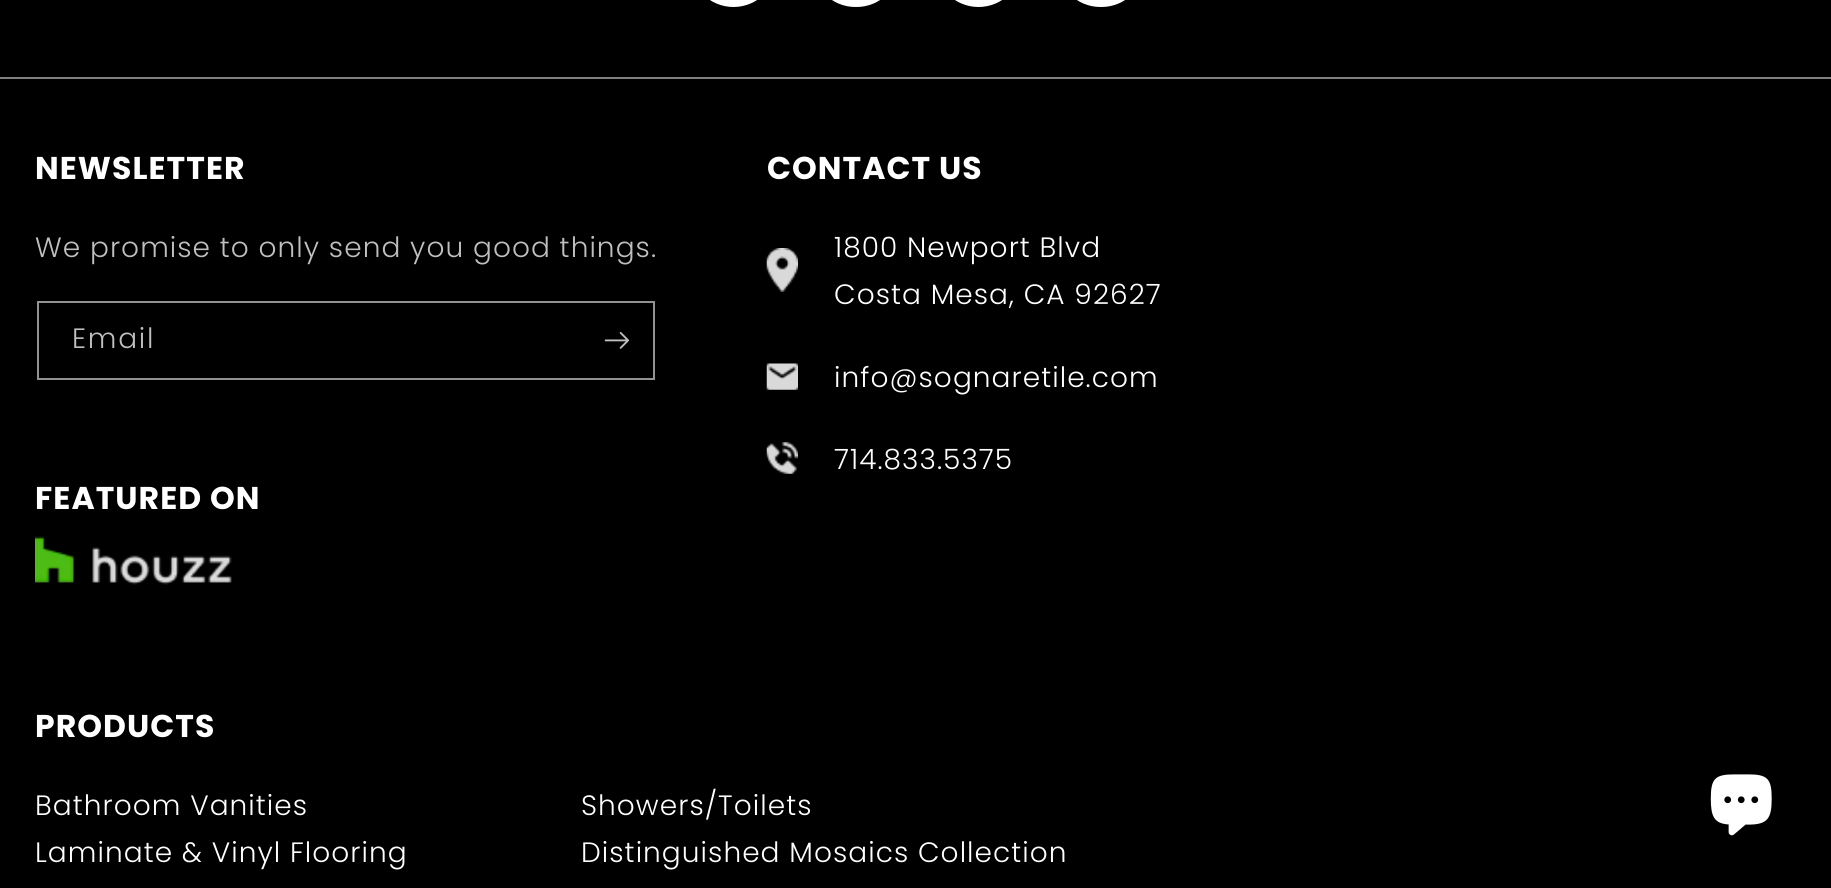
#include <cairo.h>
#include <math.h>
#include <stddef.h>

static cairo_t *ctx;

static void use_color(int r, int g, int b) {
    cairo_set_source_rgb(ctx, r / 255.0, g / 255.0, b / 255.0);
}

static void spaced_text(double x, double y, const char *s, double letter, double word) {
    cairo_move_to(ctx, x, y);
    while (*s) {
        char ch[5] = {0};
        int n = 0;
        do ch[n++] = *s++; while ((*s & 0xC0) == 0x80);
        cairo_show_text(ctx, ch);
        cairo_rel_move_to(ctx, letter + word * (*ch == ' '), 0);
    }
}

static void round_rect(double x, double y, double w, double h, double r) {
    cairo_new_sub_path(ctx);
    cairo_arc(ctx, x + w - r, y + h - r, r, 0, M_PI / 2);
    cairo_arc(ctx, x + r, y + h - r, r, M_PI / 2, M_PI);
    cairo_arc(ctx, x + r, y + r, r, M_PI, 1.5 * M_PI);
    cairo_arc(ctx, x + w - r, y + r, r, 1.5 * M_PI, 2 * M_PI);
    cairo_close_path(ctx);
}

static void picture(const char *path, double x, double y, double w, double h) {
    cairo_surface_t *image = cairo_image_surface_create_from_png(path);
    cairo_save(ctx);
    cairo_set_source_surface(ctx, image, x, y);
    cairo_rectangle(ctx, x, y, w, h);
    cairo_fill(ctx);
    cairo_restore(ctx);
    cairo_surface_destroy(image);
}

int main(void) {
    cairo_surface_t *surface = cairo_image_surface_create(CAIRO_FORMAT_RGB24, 1831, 888);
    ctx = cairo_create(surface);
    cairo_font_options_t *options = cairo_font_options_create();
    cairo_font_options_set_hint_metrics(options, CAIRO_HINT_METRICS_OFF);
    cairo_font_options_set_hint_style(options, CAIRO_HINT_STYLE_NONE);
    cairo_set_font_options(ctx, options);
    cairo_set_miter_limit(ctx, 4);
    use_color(0, 0, 0);
    cairo_paint(ctx);
    use_color(128, 128, 128);
    cairo_rectangle(ctx, 0, 77, 1831, 2);
    cairo_fill(ctx);
    use_color(255, 255, 255);
    round_rect(690, -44, 87, 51, 43.5);
    cairo_fill(ctx);
    round_rect(812, -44, 88, 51, 43.5);
    cairo_fill(ctx);
    round_rect(935, -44, 87, 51, 43.5);
    cairo_fill(ctx);
    round_rect(1057, -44, 88, 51, 43.5);
    cairo_fill(ctx);
    cairo_select_font_face(ctx, "Poppins", CAIRO_FONT_SLANT_NORMAL, CAIRO_FONT_WEIGHT_BOLD);
    cairo_set_font_size(ctx, 31.5);
    spaced_text(35, 179, "NEWSLETTER", 1.05, 0);
    cairo_select_font_face(ctx, "Poppins Light", CAIRO_FONT_SLANT_NORMAL, CAIRO_FONT_WEIGHT_NORMAL);
    cairo_set_font_size(ctx, 28);
    use_color(191, 191, 191);
    spaced_text(35, 257, "We promise to only send you good things.", 1.05, 0);
    cairo_rectangle(ctx, 38, 302, 616, 77);
    use_color(146, 146, 146);
    cairo_stroke(ctx);
    use_color(191, 191, 191);
    spaced_text(72, 348, "Email", 1.75, 0);
    picture("img1.png", 604, 332, 25, 17);
    cairo_select_font_face(ctx, "Poppins", CAIRO_FONT_SLANT_NORMAL, CAIRO_FONT_WEIGHT_BOLD);
    cairo_set_font_size(ctx, 31.5);
    use_color(255, 255, 255);
    spaced_text(35, 509, "FEATURED ON", 1.05, 0);
    picture("img2.png", 35, 536, 197, 49);
    spaced_text(767, 179, "CONTACT US", 1.05, 0);
    picture("img3.png", 766, 248, 32, 44);
    cairo_select_font_face(ctx, "Poppins Light", CAIRO_FONT_SLANT_NORMAL, CAIRO_FONT_WEIGHT_NORMAL);
    cairo_set_font_size(ctx, 28);
    spaced_text(834, 257, "1800 Newport Blvd", 1.05, 0);
    spaced_text(834, 304, "Costa Mesa, CA 92627", 1.05, 0);
    picture("img4.png", 766, 363, 32, 27);
    spaced_text(834, 387, "info@sognaretile.com", 1.05, 0);
    picture("img5.png", 766, 442, 32, 32);
    spaced_text(834, 469, "714.833.5375", 1.05, 0);
    cairo_select_font_face(ctx, "Poppins", CAIRO_FONT_SLANT_NORMAL, CAIRO_FONT_WEIGHT_BOLD);
    cairo_set_font_size(ctx, 31.5);
    spaced_text(35, 737, "PRODUCTS", 1.05, 0);
    cairo_select_font_face(ctx, "Poppins Light", CAIRO_FONT_SLANT_NORMAL, CAIRO_FONT_WEIGHT_NORMAL);
    cairo_set_font_size(ctx, 28);
    spaced_text(35, 815, "Bathroom Vanities", 1.05, 0);
    spaced_text(35, 862, "Laminate & Vinyl Flooring", 1.05, 0);
    spaced_text(581, 815, "Showers/Toilets", 1.05, 0);
    spaced_text(581, 862, "Distinguished Mosaics Collection", 1.05, 0);
    picture("img6.png", 1710, 774, 62, 62);
    cairo_surface_write_to_png(surface, "result.png");
    cairo_font_options_destroy(options);
    cairo_destroy(ctx);
    cairo_surface_destroy(surface);
    return 0;
}
